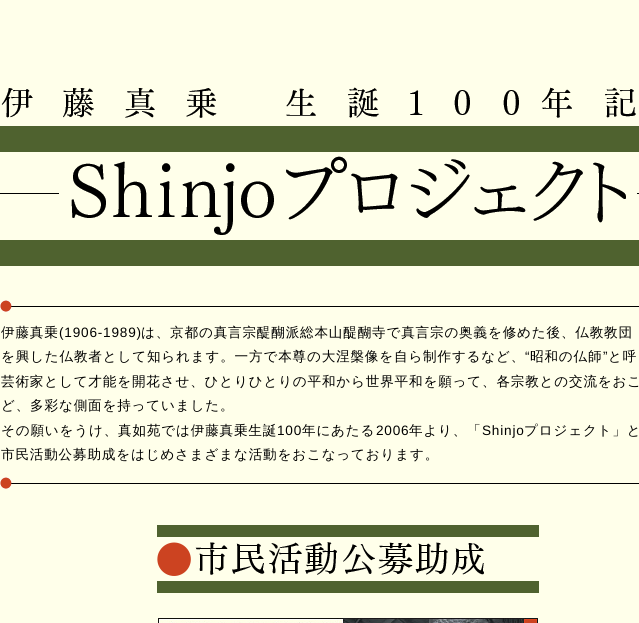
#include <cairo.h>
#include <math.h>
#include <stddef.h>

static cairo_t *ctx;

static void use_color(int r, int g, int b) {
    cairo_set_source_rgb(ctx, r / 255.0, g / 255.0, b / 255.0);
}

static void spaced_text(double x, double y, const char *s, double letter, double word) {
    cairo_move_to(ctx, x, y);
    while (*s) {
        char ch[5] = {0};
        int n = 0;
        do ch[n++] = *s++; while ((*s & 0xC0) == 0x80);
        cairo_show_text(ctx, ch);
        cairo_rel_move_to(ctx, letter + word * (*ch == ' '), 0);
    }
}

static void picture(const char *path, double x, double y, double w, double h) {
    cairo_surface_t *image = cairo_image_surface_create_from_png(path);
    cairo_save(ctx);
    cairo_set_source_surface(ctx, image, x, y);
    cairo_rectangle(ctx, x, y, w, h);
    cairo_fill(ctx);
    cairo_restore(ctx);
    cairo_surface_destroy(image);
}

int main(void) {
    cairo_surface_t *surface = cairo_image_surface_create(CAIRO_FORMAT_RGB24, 639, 623);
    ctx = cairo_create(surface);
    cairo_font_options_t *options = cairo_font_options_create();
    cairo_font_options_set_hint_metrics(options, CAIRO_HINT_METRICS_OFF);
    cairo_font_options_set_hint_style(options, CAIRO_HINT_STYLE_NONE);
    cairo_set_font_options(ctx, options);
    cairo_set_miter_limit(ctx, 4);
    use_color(255, 255, 234);
    cairo_paint(ctx);
    picture("img1.png", 0, 0, 639, 266);
    picture("img2.png", 0, 300, 639, 12);
    picture("img2.png", 0, 477, 639, 12);
    cairo_select_font_face(ctx, "WenQuanYi Zen Hei Medium", CAIRO_FONT_SLANT_NORMAL, CAIRO_FONT_WEIGHT_NORMAL);
    cairo_set_font_size(ctx, 13.6);
    use_color(0, 0, 0);
    spaced_text(1, 337, "伊藤真乗", 0.8, 0);
    cairo_select_font_face(ctx, "Liberation Sans", CAIRO_FONT_SLANT_NORMAL, CAIRO_FONT_WEIGHT_NORMAL);
    spaced_text(59, 337, "(1906‐1989)", 0.8, 0);
    cairo_select_font_face(ctx, "WenQuanYi Zen Hei Medium", CAIRO_FONT_SLANT_NORMAL, CAIRO_FONT_WEIGHT_NORMAL);
    spaced_text(141, 337, "は、京都の真言宗醍醐派総本山醍醐寺で真言宗の奥義を修めた後、仏教教団", 0.8, 0);
    spaced_text(1, 361, "を興した仏教者として知られます。一方で本尊の大涅槃像を自ら制作するなど、", 0.8, 0);
    cairo_select_font_face(ctx, "Liberation Sans", CAIRO_FONT_SLANT_NORMAL, CAIRO_FONT_WEIGHT_NORMAL);
    spaced_text(525, 361, "“", 0.8, 0);
    cairo_select_font_face(ctx, "WenQuanYi Zen Hei Medium", CAIRO_FONT_SLANT_NORMAL, CAIRO_FONT_WEIGHT_NORMAL);
    spaced_text(530, 361, "昭和の仏師", 0.8, 0);
    cairo_select_font_face(ctx, "Liberation Sans", CAIRO_FONT_SLANT_NORMAL, CAIRO_FONT_WEIGHT_NORMAL);
    spaced_text(603, 361, "”", 0.8, 0);
    cairo_select_font_face(ctx, "WenQuanYi Zen Hei Medium", CAIRO_FONT_SLANT_NORMAL, CAIRO_FONT_WEIGHT_NORMAL);
    spaced_text(608, 361, "と呼", 0.8, 0);
    spaced_text(1, 386, "芸術家として才能を開花させ、ひとりひとりの平和から世界平和を願って、各宗教との交流をおこ", 0.8, 0);
    spaced_text(1, 410, "ど、多彩な側面を持っていました。", 0.8, 0);
    spaced_text(1, 435, "その願いをうけ、真如苑では伊藤真乗生誕", 0.8, 0);
    cairo_select_font_face(ctx, "Liberation Sans", CAIRO_FONT_SLANT_NORMAL, CAIRO_FONT_WEIGHT_NORMAL);
    spaced_text(277, 435, "100", 0.8, 0);
    cairo_select_font_face(ctx, "WenQuanYi Zen Hei Medium", CAIRO_FONT_SLANT_NORMAL, CAIRO_FONT_WEIGHT_NORMAL);
    spaced_text(302, 435, "年にあたる", 0.8, 0);
    cairo_select_font_face(ctx, "Liberation Sans", CAIRO_FONT_SLANT_NORMAL, CAIRO_FONT_WEIGHT_NORMAL);
    spaced_text(376, 435, "2006", 0.8, 0);
    cairo_select_font_face(ctx, "WenQuanYi Zen Hei Medium", CAIRO_FONT_SLANT_NORMAL, CAIRO_FONT_WEIGHT_NORMAL);
    spaced_text(409, 435, "年より、「", 0.8, 0);
    cairo_select_font_face(ctx, "Liberation Sans", CAIRO_FONT_SLANT_NORMAL, CAIRO_FONT_WEIGHT_NORMAL);
    spaced_text(482, 435, "Shinjo", 0.8, 0);
    cairo_select_font_face(ctx, "WenQuanYi Zen Hei Medium", CAIRO_FONT_SLANT_NORMAL, CAIRO_FONT_WEIGHT_NORMAL);
    spaced_text(524, 435, "プロジェクト」と", 0.8, 0);
    spaced_text(1, 459, "市民活動公募助成をはじめさまざまな活動をおこなっております。", 0.8, 0);
    picture("img3.png", 157, 525, 382, 68);
    picture("img4.png", 158, 618, 380, 5);
    cairo_surface_write_to_png(surface, "result.png");
    cairo_font_options_destroy(options);
    cairo_destroy(ctx);
    cairo_surface_destroy(surface);
    return 0;
}
